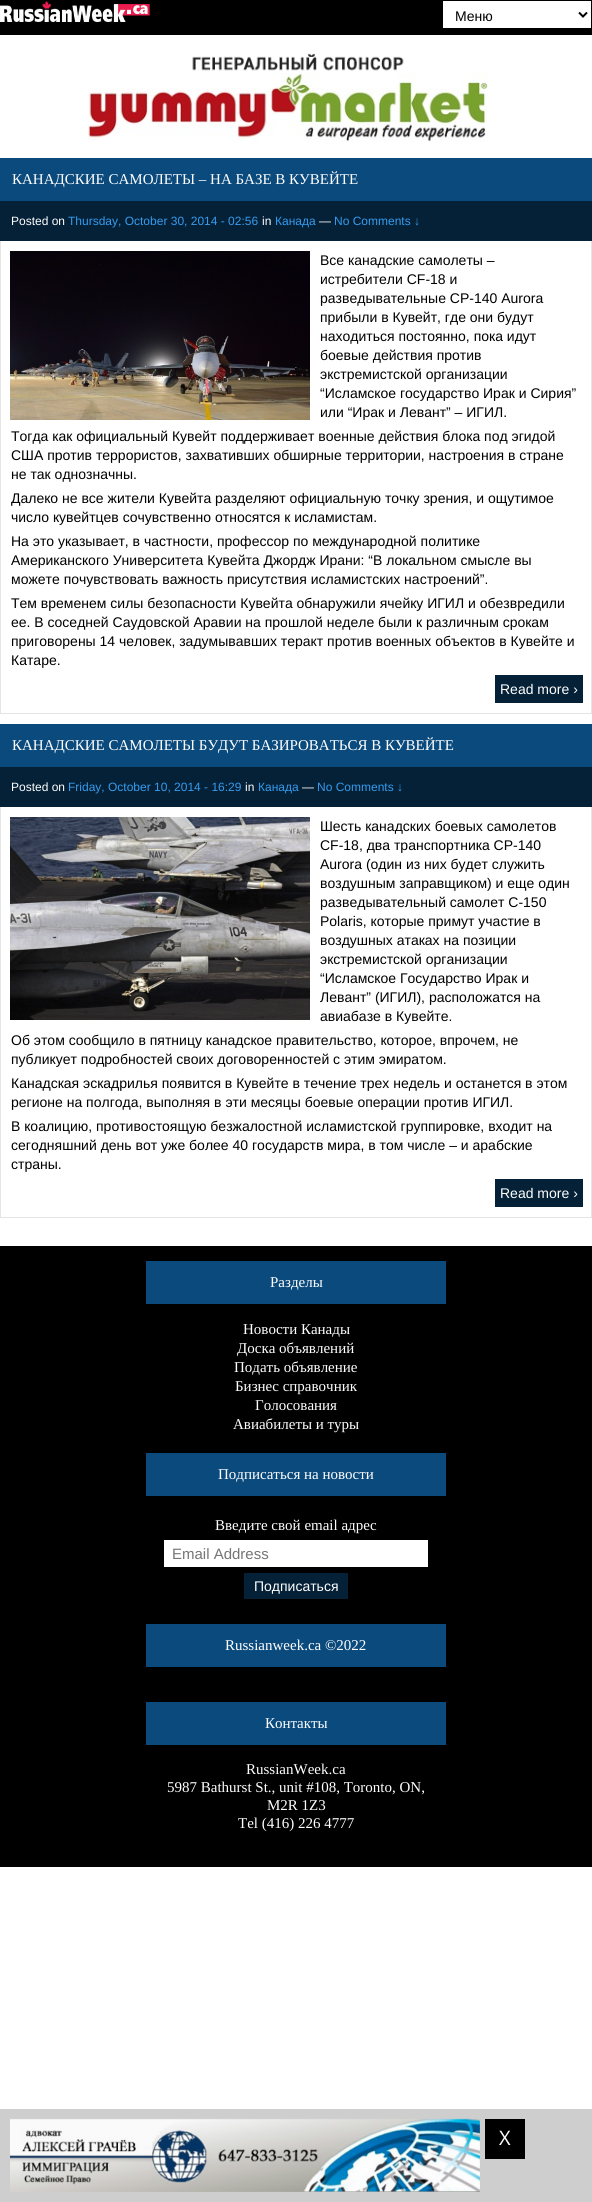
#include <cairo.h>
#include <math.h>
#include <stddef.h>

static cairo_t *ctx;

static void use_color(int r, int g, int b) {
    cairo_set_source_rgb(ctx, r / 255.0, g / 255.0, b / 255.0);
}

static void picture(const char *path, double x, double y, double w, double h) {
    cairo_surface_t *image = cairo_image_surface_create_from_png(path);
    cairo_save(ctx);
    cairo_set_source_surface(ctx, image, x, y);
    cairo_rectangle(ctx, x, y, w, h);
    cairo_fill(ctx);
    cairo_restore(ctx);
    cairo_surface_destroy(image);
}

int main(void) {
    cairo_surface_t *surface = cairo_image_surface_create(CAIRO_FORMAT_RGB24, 592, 2202);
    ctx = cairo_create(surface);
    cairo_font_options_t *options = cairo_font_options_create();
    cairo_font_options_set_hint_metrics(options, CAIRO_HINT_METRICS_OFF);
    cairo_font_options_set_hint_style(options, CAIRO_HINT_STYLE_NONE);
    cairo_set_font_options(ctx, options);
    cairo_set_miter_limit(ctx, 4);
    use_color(255, 255, 255);
    cairo_paint(ctx);
    use_color(0, 0, 0);
    cairo_rectangle(ctx, 0, 0, 592, 35);
    cairo_fill(ctx);
    picture("img1.png", 0, 1, 150, 21);
    use_color(255, 255, 255);
    cairo_rectangle(ctx, 443, 1, 148, 27);
    cairo_fill(ctx);
    cairo_new_path(ctx);
    cairo_move_to(ctx, 579, 12.5);
    cairo_line_to(ctx, 583, 16.5);
    cairo_line_to(ctx, 587, 12.5);
    use_color(0, 0, 0);
    cairo_stroke(ctx);
    cairo_select_font_face(ctx, "Liberation Sans", CAIRO_FONT_SLANT_NORMAL, CAIRO_FONT_WEIGHT_NORMAL);
    cairo_set_font_size(ctx, 14);
    cairo_move_to(ctx, 455, 21);
    cairo_show_text(ctx, "Меню");
    picture("img2.png", 88, 53, 400, 89);
    use_color(11, 74, 125);
    cairo_rectangle(ctx, 0, 158, 592, 43);
    cairo_fill(ctx);
    cairo_select_font_face(ctx, "Liberation Serif", CAIRO_FONT_SLANT_NORMAL, CAIRO_FONT_WEIGHT_NORMAL);
    cairo_set_font_size(ctx, 15);
    use_color(255, 255, 255);
    cairo_move_to(ctx, 12, 184);
    cairo_show_text(ctx, "КАНАДСКИЕ САМОЛЕТЫ – НА БАЗЕ В КУВЕЙТЕ");
    use_color(5, 33, 55);
    cairo_rectangle(ctx, 0, 201, 592, 40);
    cairo_fill(ctx);
    cairo_select_font_face(ctx, "Liberation Sans", CAIRO_FONT_SLANT_NORMAL, CAIRO_FONT_WEIGHT_NORMAL);
    cairo_set_font_size(ctx, 12);
    use_color(255, 255, 255);
    cairo_move_to(ctx, 11, 225);
    cairo_show_text(ctx, "Posted on");
    use_color(53, 155, 237);
    cairo_move_to(ctx, 68, 225);
    cairo_show_text(ctx, "Thursday, October 30, 2014 - 02:56");
    use_color(255, 255, 255);
    cairo_move_to(ctx, 262, 225);
    cairo_show_text(ctx, "in");
    use_color(53, 155, 237);
    cairo_move_to(ctx, 275, 225);
    cairo_show_text(ctx, "Канада");
    use_color(255, 255, 255);
    cairo_move_to(ctx, 319, 225);
    cairo_show_text(ctx, "—");
    use_color(53, 155, 237);
    cairo_move_to(ctx, 334, 225);
    cairo_show_text(ctx, "No Comments ↓");
    use_color(229, 229, 229);
    cairo_rectangle(ctx, 591, 241, 1, 473);
    cairo_fill(ctx);
    cairo_rectangle(ctx, 0, 713, 592, 1);
    cairo_fill(ctx);
    cairo_rectangle(ctx, 0, 241, 1, 473);
    cairo_fill(ctx);
    picture("img3.png", 10, 251, 300, 169);
    cairo_set_font_size(ctx, 14);
    use_color(0, 0, 0);
    cairo_move_to(ctx, 320, 265);
    cairo_show_text(ctx, "Все канадские самолеты –");
    cairo_move_to(ctx, 320, 284);
    cairo_show_text(ctx, "истребители CF-18 и");
    cairo_move_to(ctx, 320, 303);
    cairo_show_text(ctx, "разведывательные CP-140 Aurora");
    cairo_move_to(ctx, 320, 322);
    cairo_show_text(ctx, "прибыли в Кувейт, где они будут");
    cairo_move_to(ctx, 320, 341);
    cairo_show_text(ctx, "находиться постоянно, пока идут");
    cairo_move_to(ctx, 320, 360);
    cairo_show_text(ctx, "боевые действия против");
    cairo_move_to(ctx, 320, 379);
    cairo_show_text(ctx, "экстремистской организации");
    cairo_move_to(ctx, 320, 398);
    cairo_show_text(ctx, "“Исламское государство Ирак и Сирия”");
    cairo_move_to(ctx, 320, 417);
    cairo_show_text(ctx, "или “Ирак и Левант” – ИГИЛ.");
    cairo_move_to(ctx, 11, 441);
    cairo_show_text(ctx, "Тогда как официальный Кувейт поддерживает военные действия блока под эгидой");
    cairo_move_to(ctx, 11, 460);
    cairo_show_text(ctx, "США против террористов, захвативших обширные территории, настроения в стране");
    cairo_move_to(ctx, 11, 479);
    cairo_show_text(ctx, "не так однозначны.");
    cairo_move_to(ctx, 11, 503);
    cairo_show_text(ctx, "Далеко не все жители Кувейта разделяют официальную точку зрения, и ощутимое");
    cairo_move_to(ctx, 11, 522);
    cairo_show_text(ctx, "число кувейтцев сочувственно относятся к исламистам.");
    cairo_move_to(ctx, 11, 546);
    cairo_show_text(ctx, "На это указывает, в частности, профессор по международной политике");
    cairo_move_to(ctx, 11, 565);
    cairo_show_text(ctx, "Американского Университета Кувейта Джордж Ирани: “В локальном смысле вы");
    cairo_move_to(ctx, 11, 584);
    cairo_show_text(ctx, "можете почувствовать важность присутствия исламистских настроений”.");
    cairo_move_to(ctx, 11, 608);
    cairo_show_text(ctx, "Тем временем силы безопасности Кувейта обнаружили ячейку ИГИЛ и обезвредили");
    cairo_move_to(ctx, 11, 627);
    cairo_show_text(ctx, "ее. В соседней Саудовской Аравии на прошлой неделе были к различным срокам");
    cairo_move_to(ctx, 11, 646);
    cairo_show_text(ctx, "приговорены 14 человек, задумывавших теракт против военных объектов в Кувейте и");
    cairo_move_to(ctx, 11, 665);
    cairo_show_text(ctx, "Катаре.");
    use_color(5, 33, 55);
    cairo_rectangle(ctx, 495, 675, 88, 28);
    cairo_fill(ctx);
    use_color(255, 255, 255);
    cairo_move_to(ctx, 500, 694);
    cairo_show_text(ctx, "Read more ›");
    use_color(11, 74, 125);
    cairo_rectangle(ctx, 0, 724, 592, 43);
    cairo_fill(ctx);
    cairo_select_font_face(ctx, "Liberation Serif", CAIRO_FONT_SLANT_NORMAL, CAIRO_FONT_WEIGHT_NORMAL);
    cairo_set_font_size(ctx, 15);
    use_color(255, 255, 255);
    cairo_move_to(ctx, 12, 750);
    cairo_show_text(ctx, "КАНАДСКИЕ САМОЛЕТЫ БУДУТ БАЗИРОВАТЬСЯ В КУВЕЙТЕ");
    use_color(5, 33, 55);
    cairo_rectangle(ctx, 0, 767, 592, 40);
    cairo_fill(ctx);
    cairo_select_font_face(ctx, "Liberation Sans", CAIRO_FONT_SLANT_NORMAL, CAIRO_FONT_WEIGHT_NORMAL);
    cairo_set_font_size(ctx, 12);
    use_color(255, 255, 255);
    cairo_move_to(ctx, 11, 791);
    cairo_show_text(ctx, "Posted on");
    use_color(53, 155, 237);
    cairo_move_to(ctx, 68, 791);
    cairo_show_text(ctx, "Friday, October 10, 2014 - 16:29");
    use_color(255, 255, 255);
    cairo_move_to(ctx, 245, 791);
    cairo_show_text(ctx, "in");
    use_color(53, 155, 237);
    cairo_move_to(ctx, 258, 791);
    cairo_show_text(ctx, "Канада");
    use_color(255, 255, 255);
    cairo_move_to(ctx, 302, 791);
    cairo_show_text(ctx, "—");
    use_color(53, 155, 237);
    cairo_move_to(ctx, 317, 791);
    cairo_show_text(ctx, "No Comments ↓");
    use_color(229, 229, 229);
    cairo_rectangle(ctx, 591, 807, 1, 411);
    cairo_fill(ctx);
    cairo_rectangle(ctx, 0, 1217, 592, 1);
    cairo_fill(ctx);
    cairo_rectangle(ctx, 0, 807, 1, 411);
    cairo_fill(ctx);
    picture("img4.png", 10, 817, 300, 203);
    cairo_set_font_size(ctx, 14);
    use_color(0, 0, 0);
    cairo_move_to(ctx, 320, 831);
    cairo_show_text(ctx, "Шесть канадских боевых самолетов");
    cairo_move_to(ctx, 320, 850);
    cairo_show_text(ctx, "CF-18, два транспортника CP-140");
    cairo_move_to(ctx, 320, 869);
    cairo_show_text(ctx, "Aurora (один из них будет служить");
    cairo_move_to(ctx, 320, 888);
    cairo_show_text(ctx, "воздушным заправщиком) и еще один");
    cairo_move_to(ctx, 320, 907);
    cairo_show_text(ctx, "разведывательный самолет C-150");
    cairo_move_to(ctx, 320, 926);
    cairo_show_text(ctx, "Polaris, которые примут участие в");
    cairo_move_to(ctx, 320, 945);
    cairo_show_text(ctx, "воздушных атаках на позиции");
    cairo_move_to(ctx, 320, 964);
    cairo_show_text(ctx, "экстремистской организации");
    cairo_move_to(ctx, 320, 983);
    cairo_show_text(ctx, "“Исламское Государство Ирак и");
    cairo_move_to(ctx, 320, 1002);
    cairo_show_text(ctx, "Левант” (ИГИЛ), расположатся на");
    cairo_move_to(ctx, 320, 1021);
    cairo_show_text(ctx, "авиабазе в Кувейте.");
    cairo_move_to(ctx, 11, 1045);
    cairo_show_text(ctx, "Об этом сообщило в пятницу канадское правительство, которое, впрочем, не");
    cairo_move_to(ctx, 11, 1064);
    cairo_show_text(ctx, "публикует подробностей своих договоренностей с этим эмиратом.");
    cairo_move_to(ctx, 11, 1088);
    cairo_show_text(ctx, "Канадская эскадрилья появится в Кувейте в течение трех недель и останется в этом");
    cairo_move_to(ctx, 11, 1107);
    cairo_show_text(ctx, "регионе на полгода, выполняя в эти месяцы боевые операции против ИГИЛ.");
    cairo_move_to(ctx, 11, 1131);
    cairo_show_text(ctx, "В коалицию, противостоящую безжалостной исламистской группировке, входит на");
    cairo_move_to(ctx, 11, 1150);
    cairo_show_text(ctx, "сегодняшний день вот уже более 40 государств мира, в том числе – и арабские");
    cairo_move_to(ctx, 11, 1169);
    cairo_show_text(ctx, "страны.");
    use_color(5, 33, 55);
    cairo_rectangle(ctx, 495, 1179, 88, 28);
    cairo_fill(ctx);
    use_color(255, 255, 255);
    cairo_move_to(ctx, 500, 1198);
    cairo_show_text(ctx, "Read more ›");
    use_color(0, 0, 0);
    cairo_rectangle(ctx, 0, 1246, 592, 621);
    cairo_fill(ctx);
    use_color(11, 74, 125);
    cairo_rectangle(ctx, 146, 1261, 300, 43);
    cairo_fill(ctx);
    cairo_select_font_face(ctx, "Liberation Serif", CAIRO_FONT_SLANT_NORMAL, CAIRO_FONT_WEIGHT_NORMAL);
    cairo_set_font_size(ctx, 15);
    use_color(255, 255, 255);
    cairo_move_to(ctx, 270, 1287);
    cairo_show_text(ctx, "Разделы");
    cairo_move_to(ctx, 243, 1334);
    cairo_show_text(ctx, "Новости Канады");
    cairo_move_to(ctx, 237, 1353);
    cairo_show_text(ctx, "Доска объявлений");
    cairo_move_to(ctx, 234, 1372);
    cairo_show_text(ctx, "Подать объявление");
    cairo_move_to(ctx, 235, 1391);
    cairo_show_text(ctx, "Бизнес справочник");
    cairo_move_to(ctx, 255, 1410);
    cairo_show_text(ctx, "Голосования");
    cairo_move_to(ctx, 233, 1429);
    cairo_show_text(ctx, "Авиабилеты и туры");
    use_color(11, 74, 125);
    cairo_rectangle(ctx, 146, 1453, 300, 43);
    cairo_fill(ctx);
    use_color(255, 255, 255);
    cairo_move_to(ctx, 218, 1479);
    cairo_show_text(ctx, "Подписаться на новости");
    cairo_move_to(ctx, 215, 1530);
    cairo_show_text(ctx, "Введите свой email адрес");
    cairo_rectangle(ctx, 164, 1540, 264, 27);
    cairo_fill(ctx);
    cairo_select_font_face(ctx, "Liberation Sans", CAIRO_FONT_SLANT_NORMAL, CAIRO_FONT_WEIGHT_NORMAL);
    use_color(117, 117, 117);
    cairo_move_to(ctx, 172, 1559);
    cairo_show_text(ctx, "Email Address");
    use_color(5, 33, 55);
    cairo_rectangle(ctx, 244, 1573, 104, 26);
    cairo_fill(ctx);
    cairo_set_font_size(ctx, 14);
    use_color(255, 255, 255);
    cairo_move_to(ctx, 254, 1591);
    cairo_show_text(ctx, "Подписаться");
    use_color(11, 74, 125);
    cairo_rectangle(ctx, 146, 1624, 300, 43);
    cairo_fill(ctx);
    cairo_select_font_face(ctx, "Liberation Serif", CAIRO_FONT_SLANT_NORMAL, CAIRO_FONT_WEIGHT_NORMAL);
    cairo_set_font_size(ctx, 15);
    use_color(255, 255, 255);
    cairo_move_to(ctx, 225, 1650);
    cairo_show_text(ctx, "Russianweek.ca ©2022");
    use_color(11, 74, 125);
    cairo_rectangle(ctx, 146, 1702, 300, 43);
    cairo_fill(ctx);
    use_color(255, 255, 255);
    cairo_move_to(ctx, 265, 1728);
    cairo_show_text(ctx, "Контакты");
    cairo_move_to(ctx, 246, 1774);
    cairo_show_text(ctx, "RussianWeek.ca");
    cairo_move_to(ctx, 167, 1792);
    cairo_show_text(ctx, "5987 Bathurst St., unit #108, Toronto, ON,");
    cairo_move_to(ctx, 267, 1810);
    cairo_show_text(ctx, "M2R 1Z3");
    cairo_move_to(ctx, 238, 1828);
    cairo_show_text(ctx, "Tel (416) 226 4777");
    use_color(206, 206, 206);
    cairo_rectangle(ctx, 0, 2109, 592, 93);
    cairo_fill(ctx);
    picture("img5.png", 10, 2118, 470, 74);
    use_color(0, 0, 0);
    cairo_rectangle(ctx, 485, 2119, 40, 40);
    cairo_fill(ctx);
    cairo_select_font_face(ctx, "Open Sans", CAIRO_FONT_SLANT_NORMAL, CAIRO_FONT_WEIGHT_NORMAL);
    cairo_set_font_size(ctx, 20);
    use_color(255, 255, 255);
    cairo_move_to(ctx, 499, 2145);
    cairo_show_text(ctx, "X");
    cairo_surface_write_to_png(surface, "result.png");
    cairo_font_options_destroy(options);
    cairo_destroy(ctx);
    cairo_surface_destroy(surface);
    return 0;
}
